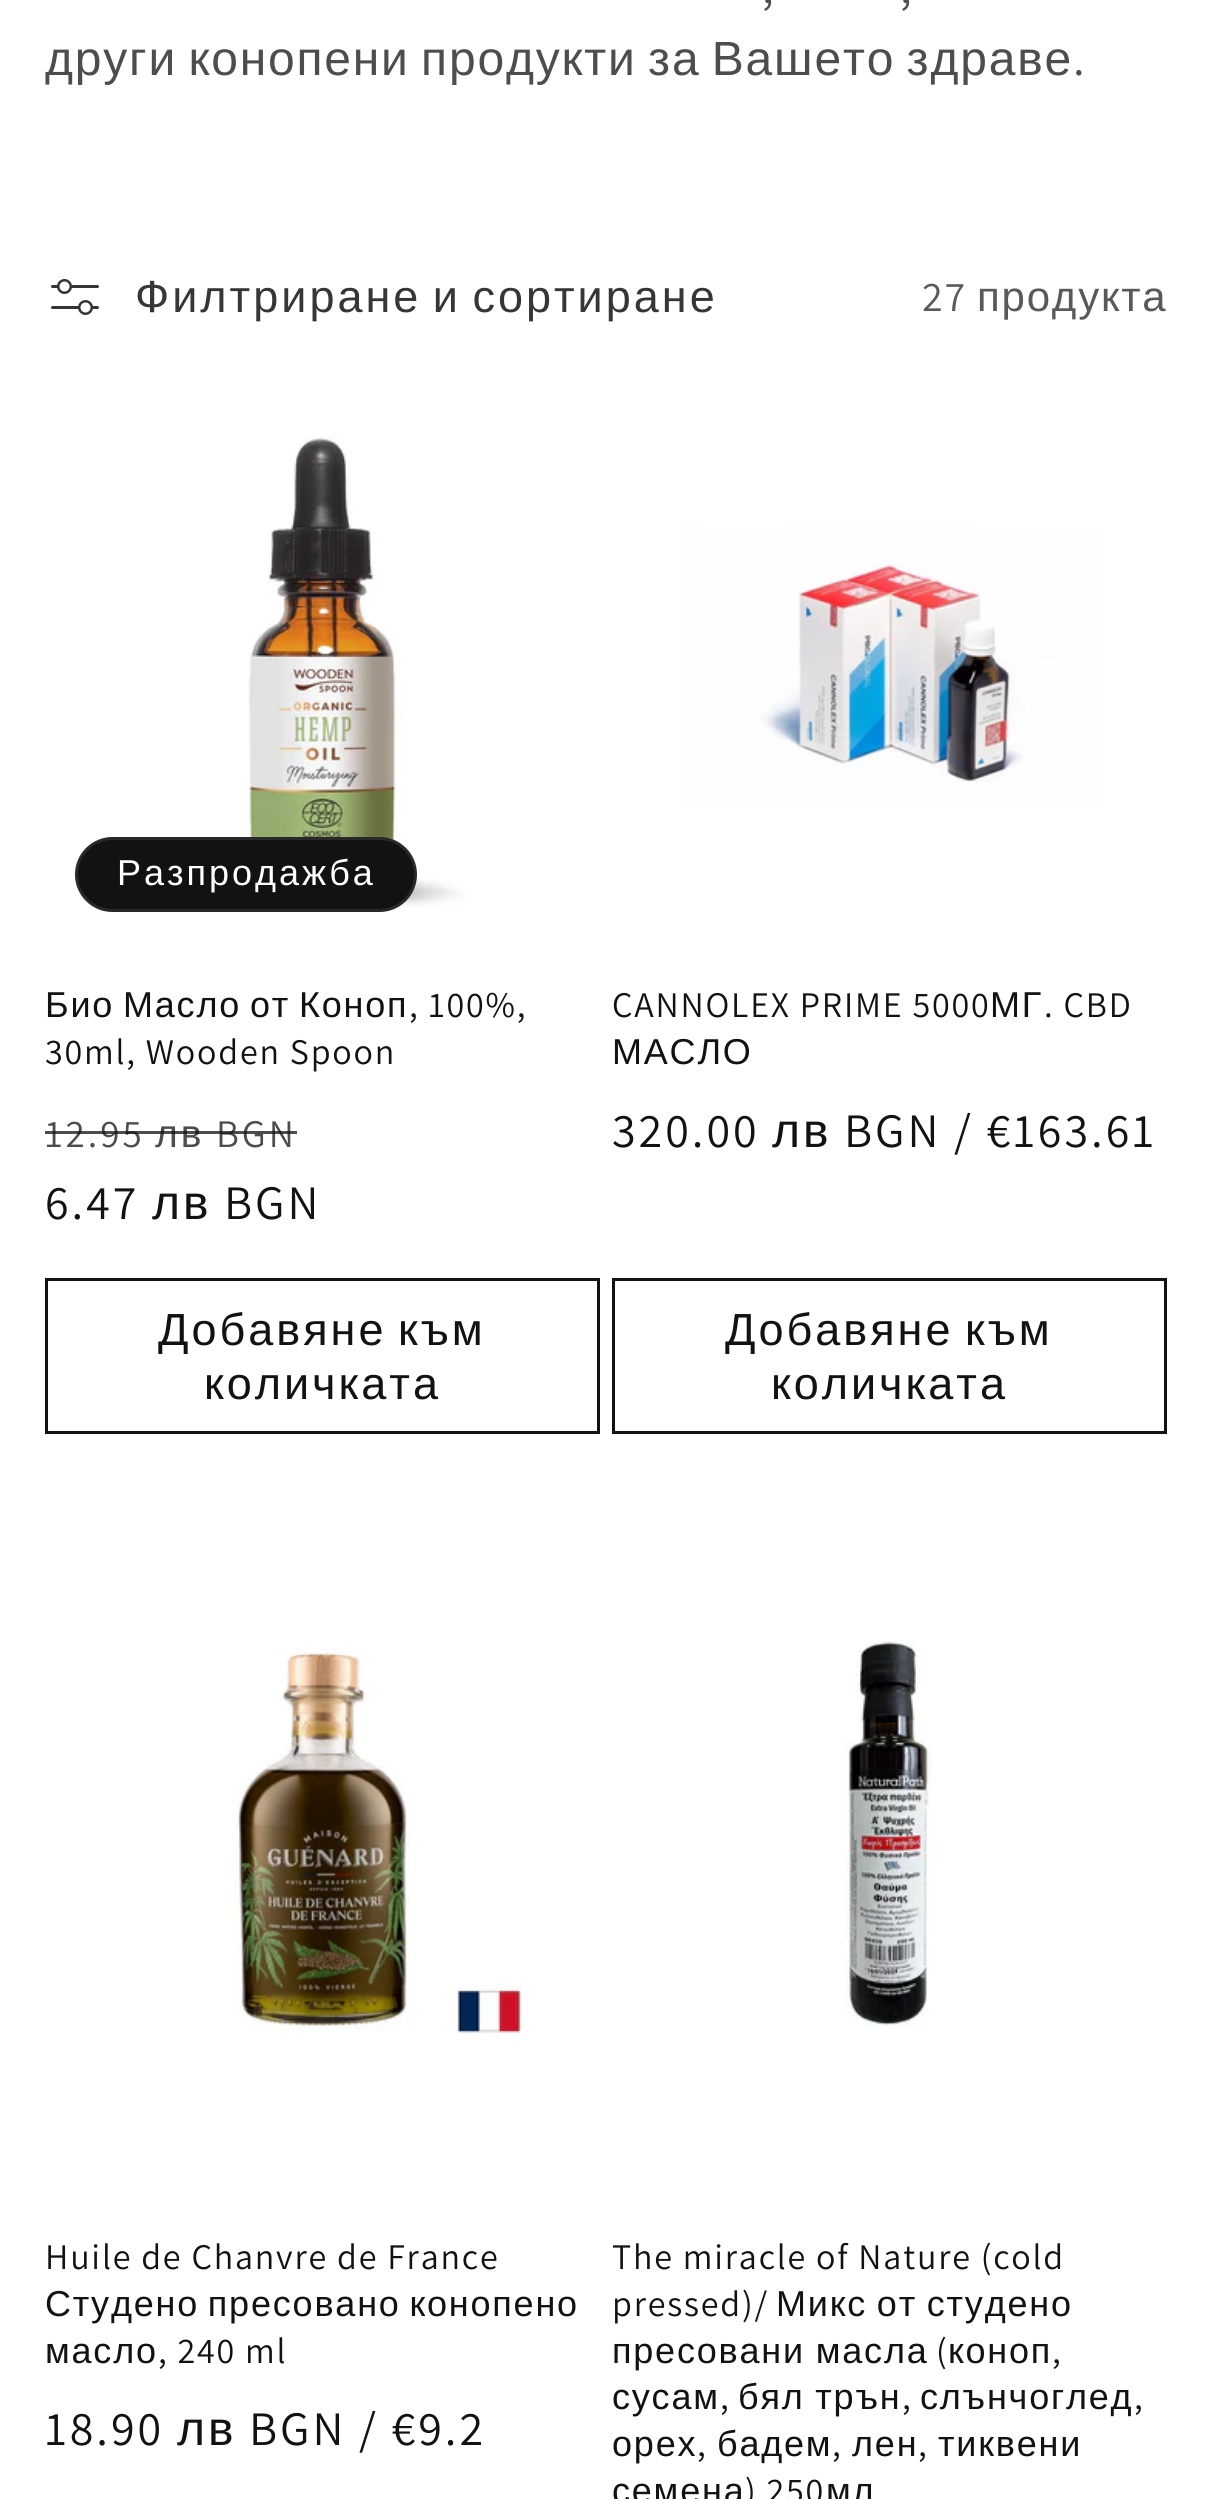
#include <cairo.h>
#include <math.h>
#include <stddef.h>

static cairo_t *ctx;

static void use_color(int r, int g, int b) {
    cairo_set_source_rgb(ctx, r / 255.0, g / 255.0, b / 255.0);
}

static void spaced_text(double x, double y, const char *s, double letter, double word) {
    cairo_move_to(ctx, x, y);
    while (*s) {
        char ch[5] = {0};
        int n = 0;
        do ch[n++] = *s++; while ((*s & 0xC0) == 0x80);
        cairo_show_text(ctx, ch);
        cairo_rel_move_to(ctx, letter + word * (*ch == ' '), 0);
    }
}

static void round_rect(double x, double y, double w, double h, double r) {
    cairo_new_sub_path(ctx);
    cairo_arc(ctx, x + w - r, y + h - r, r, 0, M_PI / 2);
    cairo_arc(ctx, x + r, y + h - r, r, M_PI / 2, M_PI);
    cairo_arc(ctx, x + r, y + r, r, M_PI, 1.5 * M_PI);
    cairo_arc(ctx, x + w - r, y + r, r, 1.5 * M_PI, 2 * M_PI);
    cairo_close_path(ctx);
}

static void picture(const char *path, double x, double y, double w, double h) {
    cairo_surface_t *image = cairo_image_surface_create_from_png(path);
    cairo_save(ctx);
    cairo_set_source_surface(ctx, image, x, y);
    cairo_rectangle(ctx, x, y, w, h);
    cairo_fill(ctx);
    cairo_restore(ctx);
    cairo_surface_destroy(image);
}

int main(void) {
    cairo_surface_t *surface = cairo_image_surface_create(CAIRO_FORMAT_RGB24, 1212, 2499);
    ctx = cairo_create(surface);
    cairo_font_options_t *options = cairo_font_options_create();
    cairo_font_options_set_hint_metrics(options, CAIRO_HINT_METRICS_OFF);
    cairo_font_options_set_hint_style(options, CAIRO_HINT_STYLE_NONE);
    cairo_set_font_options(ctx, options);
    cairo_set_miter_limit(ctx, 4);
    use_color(255, 255, 255);
    cairo_paint(ctx);
    cairo_select_font_face(ctx, "Assistant", CAIRO_FONT_SLANT_NORMAL, CAIRO_FONT_WEIGHT_NORMAL);
    cairo_set_font_size(ctx, 48);
    use_color(77, 77, 77);
    spaced_text(762, 3, ",", 1.8, 0);
    spaced_text(900, 3, ",", 1.8, 0);
    cairo_select_font_face(ctx, "Liberation Sans", CAIRO_FONT_SLANT_NORMAL, CAIRO_FONT_WEIGHT_NORMAL);
    spaced_text(45, 75, "други конопени продукти за Вашето здраве", 1.8, -3.75);
    cairo_select_font_face(ctx, "Assistant", CAIRO_FONT_SLANT_NORMAL, CAIRO_FONT_WEIGHT_NORMAL);
    spaced_text(1073, 75, ".", 1.8, 0);
    picture("img1.png", 51, 279, 48, 36);
    cairo_select_font_face(ctx, "Liberation Sans", CAIRO_FONT_SLANT_NORMAL, CAIRO_FONT_WEIGHT_NORMAL);
    cairo_set_font_size(ctx, 45);
    use_color(54, 54, 54);
    spaced_text(135, 312, "Филтриране и сортиране", 3, -4);
    cairo_select_font_face(ctx, "Assistant", CAIRO_FONT_SLANT_NORMAL, CAIRO_FONT_WEIGHT_NORMAL);
    cairo_set_font_size(ctx, 42);
    use_color(89, 89, 89);
    spaced_text(922, 311, "27", 1.8, 0);
    cairo_select_font_face(ctx, "Liberation Sans", CAIRO_FONT_SLANT_NORMAL, CAIRO_FONT_WEIGHT_NORMAL);
    spaced_text(977, 311, "продукта", 1.8, 0);
    picture("img2.png", 45, 387, 555, 555);
    use_color(18, 18, 18);
    round_rect(75, 837, 342, 75, 37.5);
    cairo_fill(ctx);
    round_rect(76.5, 838.5, 339, 72, 36);
    cairo_set_source_rgba(ctx, 1, 1, 1, 0.1);
    cairo_set_line_width(ctx, 3);
    cairo_stroke(ctx);
    cairo_set_font_size(ctx, 36);
    use_color(255, 255, 255);
    spaced_text(117, 885, "Разпродажба", 3, 0);
    use_color(18, 18, 18);
    spaced_text(45, 1017, "Био", 1.8, 0);
    spaced_text(123, 1017, "Масло", 1.8, 0);
    spaced_text(250, 1017, "от", 1.8, 0);
    spaced_text(299, 1017, "Коноп", 1.8, 0);
    cairo_select_font_face(ctx, "Assistant", CAIRO_FONT_SLANT_NORMAL, CAIRO_FONT_WEIGHT_NORMAL);
    spaced_text(409, 1017, ", 100%,", 1.8, 0);
    spaced_text(45, 1064, "30ml, Wooden Spoon", 1.8, 0);
    cairo_set_font_size(ctx, 39);
    use_color(77, 77, 77);
    spaced_text(45, 1147, "12.95", 3, 0);
    cairo_select_font_face(ctx, "Liberation Sans", CAIRO_FONT_SLANT_NORMAL, CAIRO_FONT_WEIGHT_NORMAL);
    spaced_text(155, 1147, "лв", 3, 0);
    cairo_select_font_face(ctx, "Assistant", CAIRO_FONT_SLANT_NORMAL, CAIRO_FONT_WEIGHT_NORMAL);
    spaced_text(216, 1147, "BGN", 3, 0);
    cairo_set_source_rgba(ctx, 0.071, 0.071, 0.071, 0.75);
    cairo_rectangle(ctx, 45, 1131, 252, 3);
    cairo_fill(ctx);
    cairo_set_font_size(ctx, 48);
    use_color(18, 18, 18);
    spaced_text(45, 1219, "6.47", 3, 0);
    cairo_select_font_face(ctx, "Liberation Sans", CAIRO_FONT_SLANT_NORMAL, CAIRO_FONT_WEIGHT_NORMAL);
    spaced_text(152, 1219, "лв", 3, 0);
    cairo_select_font_face(ctx, "Assistant", CAIRO_FONT_SLANT_NORMAL, CAIRO_FONT_WEIGHT_NORMAL);
    spaced_text(224, 1219, "BGN", 3, 0);
    cairo_rectangle(ctx, 46.5, 1279.5, 552, 153);
    cairo_stroke(ctx);
    cairo_select_font_face(ctx, "Liberation Sans", CAIRO_FONT_SLANT_NORMAL, CAIRO_FONT_WEIGHT_NORMAL);
    cairo_set_font_size(ctx, 45);
    spaced_text(158, 1345, "Добавяне към", 3, -4);
    spaced_text(204, 1399, "количката", 3, 0);
    picture("img3.png", 612, 387, 555, 555);
    cairo_select_font_face(ctx, "Assistant", CAIRO_FONT_SLANT_NORMAL, CAIRO_FONT_WEIGHT_NORMAL);
    cairo_set_font_size(ctx, 36);
    spaced_text(612, 1017, "CANNOLEX PRIME 5000", 1.8, 0);
    cairo_select_font_face(ctx, "Liberation Sans", CAIRO_FONT_SLANT_NORMAL, CAIRO_FONT_WEIGHT_NORMAL);
    spaced_text(990, 1017, "МГ", 1.8, 0);
    cairo_select_font_face(ctx, "Assistant", CAIRO_FONT_SLANT_NORMAL, CAIRO_FONT_WEIGHT_NORMAL);
    spaced_text(1044, 1017, ". CBD", 1.8, 0);
    cairo_select_font_face(ctx, "Liberation Sans", CAIRO_FONT_SLANT_NORMAL, CAIRO_FONT_WEIGHT_NORMAL);
    spaced_text(612, 1064, "МАСЛО", 1.8, 0);
    cairo_select_font_face(ctx, "Assistant", CAIRO_FONT_SLANT_NORMAL, CAIRO_FONT_WEIGHT_NORMAL);
    cairo_set_font_size(ctx, 48);
    spaced_text(612, 1147, "320.00", 3, 0);
    cairo_select_font_face(ctx, "Liberation Sans", CAIRO_FONT_SLANT_NORMAL, CAIRO_FONT_WEIGHT_NORMAL);
    spaced_text(772, 1147, "лв", 3, 0);
    cairo_select_font_face(ctx, "Assistant", CAIRO_FONT_SLANT_NORMAL, CAIRO_FONT_WEIGHT_NORMAL);
    spaced_text(844, 1147, "BGN / €163.61", 3, 0);
    cairo_rectangle(ctx, 613.5, 1279.5, 552, 153);
    cairo_stroke(ctx);
    cairo_select_font_face(ctx, "Liberation Sans", CAIRO_FONT_SLANT_NORMAL, CAIRO_FONT_WEIGHT_NORMAL);
    cairo_set_font_size(ctx, 45);
    spaced_text(725, 1345, "Добавяне към", 3, -4);
    spaced_text(771, 1399, "количката", 3, 0);
    picture("img4.png", 45, 1476, 555, 717);
    cairo_select_font_face(ctx, "Assistant", CAIRO_FONT_SLANT_NORMAL, CAIRO_FONT_WEIGHT_NORMAL);
    cairo_set_font_size(ctx, 36);
    spaced_text(45, 2269, "Huile de Chanvre de France", 1.8, 0);
    cairo_select_font_face(ctx, "Liberation Sans", CAIRO_FONT_SLANT_NORMAL, CAIRO_FONT_WEIGHT_NORMAL);
    spaced_text(45, 2316, "Студено пресовано конопено", 1.8, -3);
    spaced_text(45, 2363, "масло", 1.8, 0);
    cairo_select_font_face(ctx, "Assistant", CAIRO_FONT_SLANT_NORMAL, CAIRO_FONT_WEIGHT_NORMAL);
    spaced_text(158, 2363, ", 240 ml", 1.8, 0);
    cairo_set_font_size(ctx, 48);
    spaced_text(45, 2445, "18.90", 3, 0);
    cairo_select_font_face(ctx, "Liberation Sans", CAIRO_FONT_SLANT_NORMAL, CAIRO_FONT_WEIGHT_NORMAL);
    spaced_text(177, 2445, "лв", 3, 0);
    cairo_select_font_face(ctx, "Assistant", CAIRO_FONT_SLANT_NORMAL, CAIRO_FONT_WEIGHT_NORMAL);
    spaced_text(249, 2445, "BGN / €9.2", 3, 0);
    picture("img5.png", 612, 1476, 555, 717);
    cairo_set_font_size(ctx, 36);
    spaced_text(612, 2269, "The miracle of Nature (cold", 1.8, 0);
    spaced_text(612, 2316, "pressed)/", 1.8, 0);
    cairo_select_font_face(ctx, "Liberation Sans", CAIRO_FONT_SLANT_NORMAL, CAIRO_FONT_WEIGHT_NORMAL);
    spaced_text(776, 2316, "Микс от студено", 1.8, -2);
    spaced_text(612, 2363, "пресовани масла", 1.8, -1);
    cairo_select_font_face(ctx, "Assistant", CAIRO_FONT_SLANT_NORMAL, CAIRO_FONT_WEIGHT_NORMAL);
    spaced_text(936, 2363, "(", 1.8, 0);
    cairo_select_font_face(ctx, "Liberation Sans", CAIRO_FONT_SLANT_NORMAL, CAIRO_FONT_WEIGHT_NORMAL);
    spaced_text(948, 2363, "коноп", 1.8, 0);
    cairo_select_font_face(ctx, "Assistant", CAIRO_FONT_SLANT_NORMAL, CAIRO_FONT_WEIGHT_NORMAL);
    spaced_text(1052, 2363, ",", 1.8, 0);
    cairo_select_font_face(ctx, "Liberation Sans", CAIRO_FONT_SLANT_NORMAL, CAIRO_FONT_WEIGHT_NORMAL);
    spaced_text(612, 2409, "сусам", 1.8, 0);
    cairo_select_font_face(ctx, "Assistant", CAIRO_FONT_SLANT_NORMAL, CAIRO_FONT_WEIGHT_NORMAL);
    spaced_text(720, 2409, ",", 1.8, 0);
    cairo_select_font_face(ctx, "Liberation Sans", CAIRO_FONT_SLANT_NORMAL, CAIRO_FONT_WEIGHT_NORMAL);
    spaced_text(738, 2409, "бял трън", 1.8, -1);
    cairo_select_font_face(ctx, "Assistant", CAIRO_FONT_SLANT_NORMAL, CAIRO_FONT_WEIGHT_NORMAL);
    spaced_text(902, 2409, ",", 1.8, 0);
    cairo_select_font_face(ctx, "Liberation Sans", CAIRO_FONT_SLANT_NORMAL, CAIRO_FONT_WEIGHT_NORMAL);
    spaced_text(920, 2409, "слънчоглед", 1.8, 0);
    cairo_select_font_face(ctx, "Assistant", CAIRO_FONT_SLANT_NORMAL, CAIRO_FONT_WEIGHT_NORMAL);
    spaced_text(1134, 2409, ",", 1.8, 0);
    cairo_select_font_face(ctx, "Liberation Sans", CAIRO_FONT_SLANT_NORMAL, CAIRO_FONT_WEIGHT_NORMAL);
    spaced_text(612, 2456, "орех", 1.8, 0);
    cairo_select_font_face(ctx, "Assistant", CAIRO_FONT_SLANT_NORMAL, CAIRO_FONT_WEIGHT_NORMAL);
    spaced_text(697, 2456, ",", 1.8, 0);
    cairo_select_font_face(ctx, "Liberation Sans", CAIRO_FONT_SLANT_NORMAL, CAIRO_FONT_WEIGHT_NORMAL);
    spaced_text(717, 2456, "бадем", 1.8, 0);
    cairo_select_font_face(ctx, "Assistant", CAIRO_FONT_SLANT_NORMAL, CAIRO_FONT_WEIGHT_NORMAL);
    spaced_text(832, 2456, ",", 1.8, 0);
    cairo_select_font_face(ctx, "Liberation Sans", CAIRO_FONT_SLANT_NORMAL, CAIRO_FONT_WEIGHT_NORMAL);
    spaced_text(852, 2456, "лен", 1.8, 0);
    cairo_select_font_face(ctx, "Assistant", CAIRO_FONT_SLANT_NORMAL, CAIRO_FONT_WEIGHT_NORMAL);
    spaced_text(918, 2456, ",", 1.8, 0);
    cairo_select_font_face(ctx, "Liberation Sans", CAIRO_FONT_SLANT_NORMAL, CAIRO_FONT_WEIGHT_NORMAL);
    spaced_text(938, 2456, "тиквени", 1.8, 0);
    spaced_text(612, 2503, "семена", 1.8, 0);
    cairo_select_font_face(ctx, "Assistant", CAIRO_FONT_SLANT_NORMAL, CAIRO_FONT_WEIGHT_NORMAL);
    spaced_text(745, 2503, ") 250", 1.8, 0);
    cairo_select_font_face(ctx, "Liberation Sans", CAIRO_FONT_SLANT_NORMAL, CAIRO_FONT_WEIGHT_NORMAL);
    spaced_text(826, 2503, "мл", 1.8, 0);
    cairo_surface_write_to_png(surface, "result.png");
    cairo_font_options_destroy(options);
    cairo_destroy(ctx);
    cairo_surface_destroy(surface);
    return 0;
}
